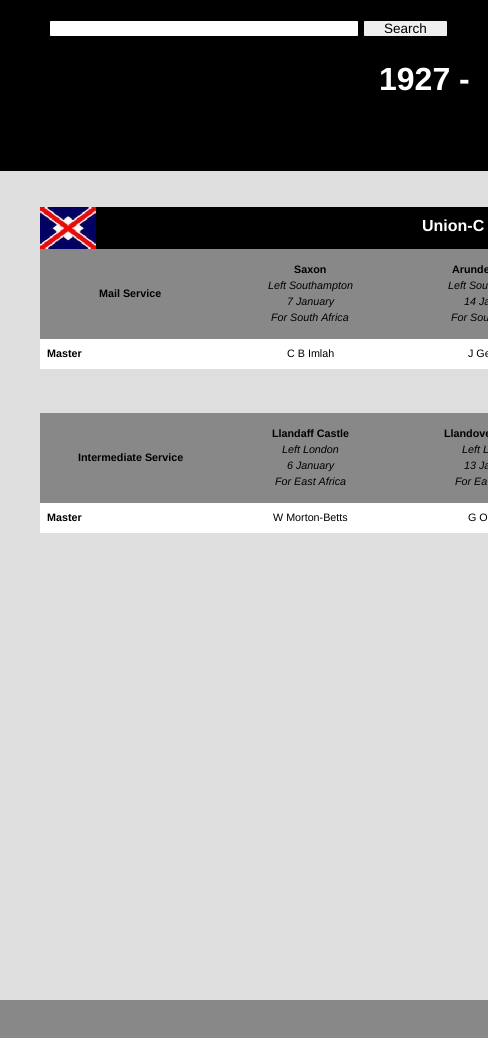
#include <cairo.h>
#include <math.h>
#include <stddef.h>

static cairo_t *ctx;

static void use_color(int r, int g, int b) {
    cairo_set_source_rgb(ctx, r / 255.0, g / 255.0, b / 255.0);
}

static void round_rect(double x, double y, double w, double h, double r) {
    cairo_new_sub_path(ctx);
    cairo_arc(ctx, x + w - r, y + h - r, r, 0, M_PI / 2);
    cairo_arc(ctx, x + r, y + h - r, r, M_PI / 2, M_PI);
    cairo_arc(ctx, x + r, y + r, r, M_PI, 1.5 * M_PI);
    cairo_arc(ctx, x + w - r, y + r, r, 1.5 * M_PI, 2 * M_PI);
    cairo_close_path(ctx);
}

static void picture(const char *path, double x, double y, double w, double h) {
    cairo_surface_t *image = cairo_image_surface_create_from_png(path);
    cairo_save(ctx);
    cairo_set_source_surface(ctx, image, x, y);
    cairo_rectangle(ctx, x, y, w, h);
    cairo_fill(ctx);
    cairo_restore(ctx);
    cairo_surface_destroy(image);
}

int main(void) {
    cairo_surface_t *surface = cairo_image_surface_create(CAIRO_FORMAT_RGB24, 488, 1038);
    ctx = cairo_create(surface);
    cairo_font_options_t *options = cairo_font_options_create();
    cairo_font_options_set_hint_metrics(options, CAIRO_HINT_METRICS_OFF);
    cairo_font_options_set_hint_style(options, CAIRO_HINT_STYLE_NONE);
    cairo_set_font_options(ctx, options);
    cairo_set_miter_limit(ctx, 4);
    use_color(136, 136, 136);
    cairo_paint(ctx);
    use_color(222, 222, 222);
    cairo_rectangle(ctx, 0, 171, 488, 829);
    cairo_fill(ctx);
    use_color(0, 0, 0);
    cairo_rectangle(ctx, 0, 0, 488, 171);
    cairo_fill(ctx);
    use_color(255, 255, 255);
    round_rect(49.5, 20.5, 309, 16, 1.5);
    cairo_fill_preserve(ctx);
    use_color(0, 0, 0);
    cairo_set_line_width(ctx, 1);
    cairo_stroke(ctx);
    use_color(239, 239, 239);
    round_rect(363.5, 20.5, 84, 16, 1.5);
    cairo_fill_preserve(ctx);
    use_color(0, 0, 0);
    cairo_stroke(ctx);
    cairo_select_font_face(ctx, "Liberation Sans", CAIRO_FONT_SLANT_NORMAL, CAIRO_FONT_WEIGHT_NORMAL);
    cairo_set_font_size(ctx, 13.5);
    cairo_move_to(ctx, 384, 33);
    cairo_show_text(ctx, "Search");
    cairo_select_font_face(ctx, "Liberation Sans", CAIRO_FONT_SLANT_NORMAL, CAIRO_FONT_WEIGHT_BOLD);
    cairo_set_font_size(ctx, 32);
    use_color(255, 255, 255);
    cairo_move_to(ctx, 379, 90);
    cairo_show_text(ctx, "1927 -");
    picture("img1.png", 40, 207, 56, 42);
    use_color(0, 0, 0);
    cairo_rectangle(ctx, 96, 207, 392, 42);
    cairo_fill(ctx);
    cairo_set_font_size(ctx, 16);
    use_color(255, 255, 255);
    cairo_move_to(ctx, 422, 231);
    cairo_show_text(ctx, "Union-C");
    use_color(136, 136, 136);
    cairo_rectangle(ctx, 40, 249, 448, 90);
    cairo_fill(ctx);
    cairo_set_font_size(ctx, 10.75);
    use_color(0, 0, 0);
    cairo_move_to(ctx, 99, 297);
    cairo_show_text(ctx, "Mail Service");
    cairo_move_to(ctx, 294, 273);
    cairo_show_text(ctx, "Saxon");
    cairo_select_font_face(ctx, "Liberation Sans", CAIRO_FONT_SLANT_ITALIC, CAIRO_FONT_WEIGHT_NORMAL);
    cairo_move_to(ctx, 268, 289);
    cairo_show_text(ctx, "Left Southampton");
    cairo_move_to(ctx, 287, 305);
    cairo_show_text(ctx, "7 January");
    cairo_move_to(ctx, 271, 321);
    cairo_show_text(ctx, "For South Africa");
    cairo_select_font_face(ctx, "Liberation Sans", CAIRO_FONT_SLANT_NORMAL, CAIRO_FONT_WEIGHT_BOLD);
    cairo_move_to(ctx, 452, 273);
    cairo_show_text(ctx, "Arunde");
    cairo_select_font_face(ctx, "Liberation Sans", CAIRO_FONT_SLANT_ITALIC, CAIRO_FONT_WEIGHT_NORMAL);
    cairo_move_to(ctx, 448, 289);
    cairo_show_text(ctx, "Left Sou");
    cairo_move_to(ctx, 464, 305);
    cairo_show_text(ctx, "14 Ja");
    cairo_move_to(ctx, 451, 321);
    cairo_show_text(ctx, "For Sou");
    use_color(255, 255, 255);
    cairo_rectangle(ctx, 40, 339, 448, 30);
    cairo_fill(ctx);
    cairo_select_font_face(ctx, "Liberation Sans", CAIRO_FONT_SLANT_NORMAL, CAIRO_FONT_WEIGHT_BOLD);
    use_color(0, 0, 0);
    cairo_move_to(ctx, 47, 357);
    cairo_show_text(ctx, "Master");
    cairo_select_font_face(ctx, "Liberation Sans", CAIRO_FONT_SLANT_NORMAL, CAIRO_FONT_WEIGHT_NORMAL);
    cairo_move_to(ctx, 287, 357);
    cairo_show_text(ctx, "C B Imlah");
    cairo_move_to(ctx, 468, 357);
    cairo_show_text(ctx, "J Ge");
    use_color(136, 136, 136);
    cairo_rectangle(ctx, 40, 413, 448, 90);
    cairo_fill(ctx);
    cairo_select_font_face(ctx, "Liberation Sans", CAIRO_FONT_SLANT_NORMAL, CAIRO_FONT_WEIGHT_BOLD);
    use_color(0, 0, 0);
    cairo_move_to(ctx, 78, 461);
    cairo_show_text(ctx, "Intermediate Service");
    cairo_move_to(ctx, 272, 437);
    cairo_show_text(ctx, "Llandaff Castle");
    cairo_select_font_face(ctx, "Liberation Sans", CAIRO_FONT_SLANT_ITALIC, CAIRO_FONT_WEIGHT_NORMAL);
    cairo_move_to(ctx, 282, 453);
    cairo_show_text(ctx, "Left London");
    cairo_move_to(ctx, 287, 469);
    cairo_show_text(ctx, "6 January");
    cairo_move_to(ctx, 275, 485);
    cairo_show_text(ctx, "For East Africa");
    cairo_select_font_face(ctx, "Liberation Sans", CAIRO_FONT_SLANT_NORMAL, CAIRO_FONT_WEIGHT_BOLD);
    cairo_move_to(ctx, 444, 437);
    cairo_show_text(ctx, "Llandove");
    cairo_select_font_face(ctx, "Liberation Sans", CAIRO_FONT_SLANT_ITALIC, CAIRO_FONT_WEIGHT_NORMAL);
    cairo_move_to(ctx, 462, 453);
    cairo_show_text(ctx, "Left L");
    cairo_move_to(ctx, 464, 469);
    cairo_show_text(ctx, "13 Ja");
    cairo_move_to(ctx, 455, 485);
    cairo_show_text(ctx, "For Ea");
    use_color(255, 255, 255);
    cairo_rectangle(ctx, 40, 503, 448, 30);
    cairo_fill(ctx);
    cairo_select_font_face(ctx, "Liberation Sans", CAIRO_FONT_SLANT_NORMAL, CAIRO_FONT_WEIGHT_BOLD);
    use_color(0, 0, 0);
    cairo_move_to(ctx, 47, 521);
    cairo_show_text(ctx, "Master");
    cairo_select_font_face(ctx, "Liberation Sans", CAIRO_FONT_SLANT_NORMAL, CAIRO_FONT_WEIGHT_NORMAL);
    cairo_move_to(ctx, 273, 521);
    cairo_show_text(ctx, "W Morton-Betts");
    cairo_move_to(ctx, 468, 521);
    cairo_show_text(ctx, "G O");
    cairo_surface_write_to_png(surface, "result.png");
    cairo_font_options_destroy(options);
    cairo_destroy(ctx);
    cairo_surface_destroy(surface);
    return 0;
}
